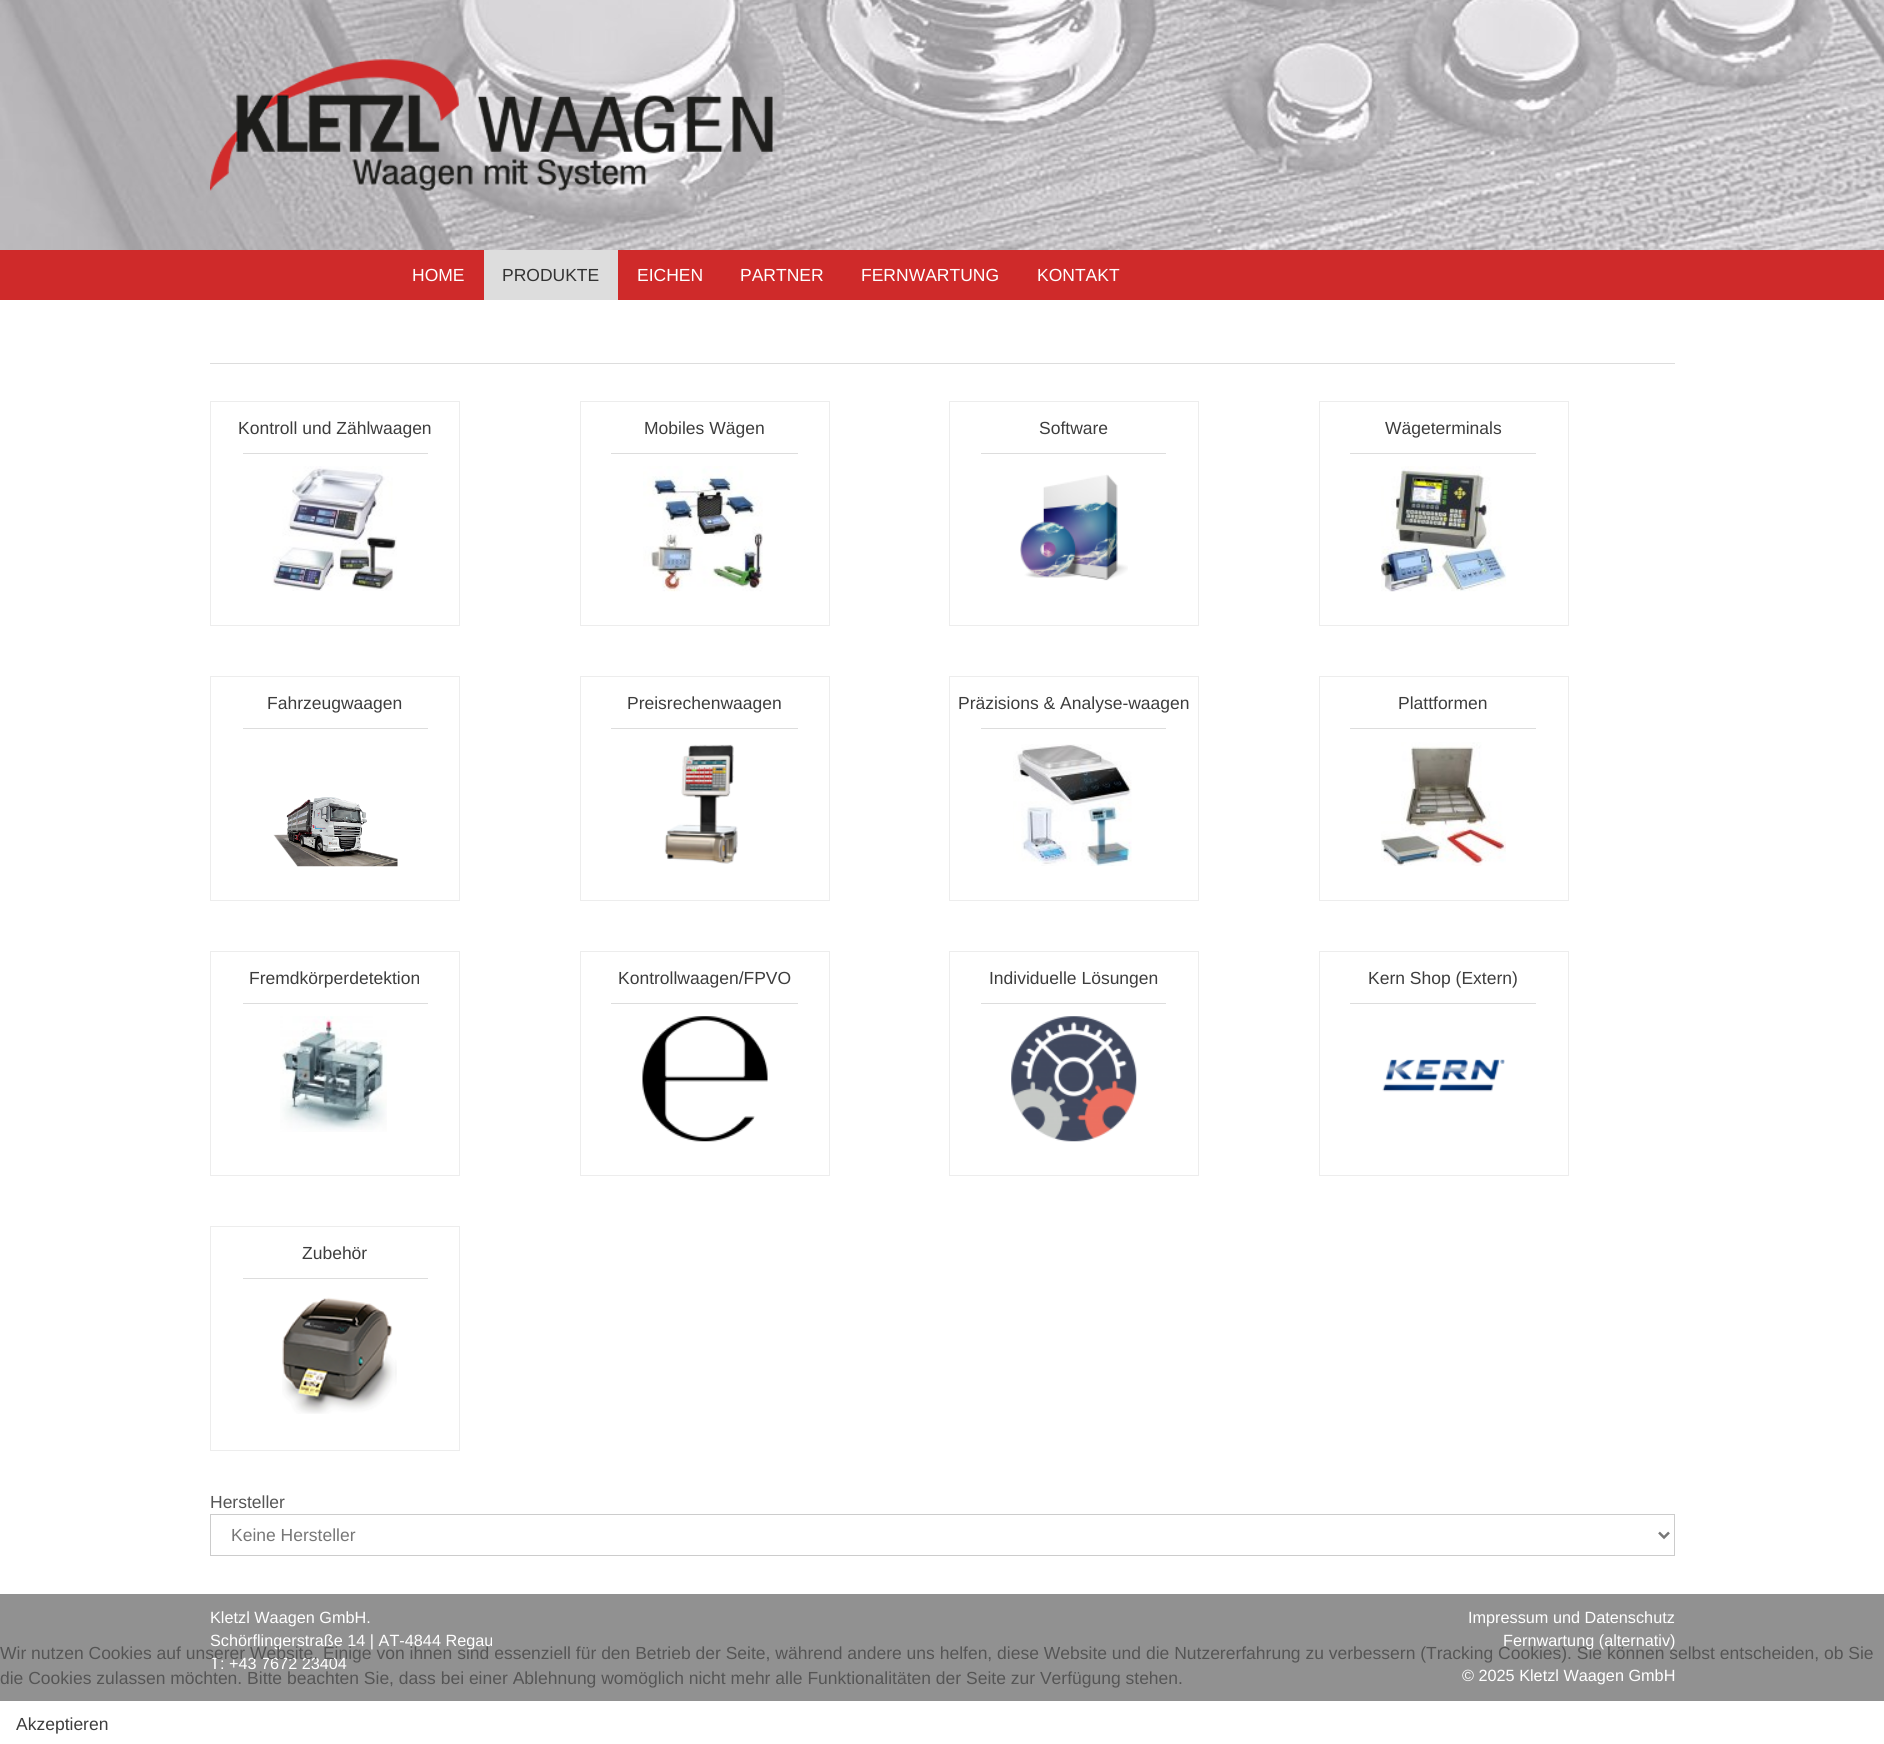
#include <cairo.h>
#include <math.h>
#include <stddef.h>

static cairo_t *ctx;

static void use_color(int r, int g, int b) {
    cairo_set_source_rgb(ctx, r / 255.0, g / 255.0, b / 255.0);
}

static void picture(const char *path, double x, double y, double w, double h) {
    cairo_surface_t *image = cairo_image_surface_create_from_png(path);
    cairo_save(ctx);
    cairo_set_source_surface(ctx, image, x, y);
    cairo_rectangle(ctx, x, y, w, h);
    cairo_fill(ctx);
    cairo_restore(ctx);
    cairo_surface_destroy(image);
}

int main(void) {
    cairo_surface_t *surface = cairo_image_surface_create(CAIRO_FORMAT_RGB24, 1884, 1744);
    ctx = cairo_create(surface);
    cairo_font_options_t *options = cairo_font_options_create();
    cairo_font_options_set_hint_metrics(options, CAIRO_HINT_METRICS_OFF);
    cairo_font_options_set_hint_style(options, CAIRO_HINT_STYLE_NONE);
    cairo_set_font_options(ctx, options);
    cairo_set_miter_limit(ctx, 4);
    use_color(255, 255, 255);
    cairo_paint(ctx);
    picture("img1.png", 0, 0, 1884, 250);
    picture("img2.png", 210, 59, 563, 132);
    use_color(207, 42, 42);
    cairo_rectangle(ctx, 0, 250, 1884, 50);
    cairo_fill(ctx);
    cairo_select_font_face(ctx, "Liberation Sans", CAIRO_FONT_SLANT_NORMAL, CAIRO_FONT_WEIGHT_NORMAL);
    cairo_set_font_size(ctx, 17.5);
    use_color(255, 255, 255);
    cairo_move_to(ctx, 412, 281);
    cairo_show_text(ctx, "HOME");
    use_color(221, 221, 221);
    cairo_rectangle(ctx, 484, 250, 134, 50);
    cairo_fill(ctx);
    use_color(51, 51, 51);
    cairo_move_to(ctx, 502, 281);
    cairo_show_text(ctx, "PRODUKTE");
    use_color(255, 255, 255);
    cairo_move_to(ctx, 637, 281);
    cairo_show_text(ctx, "EICHEN");
    cairo_move_to(ctx, 740, 281);
    cairo_show_text(ctx, "PARTNER");
    cairo_move_to(ctx, 861, 281);
    cairo_show_text(ctx, "FERNWARTUNG");
    cairo_move_to(ctx, 1037, 281);
    cairo_show_text(ctx, "KONTAKT");
    use_color(221, 221, 221);
    cairo_rectangle(ctx, 210, 363, 1465, 1);
    cairo_fill(ctx);
    cairo_rectangle(ctx, 210.5, 401.5, 249, 224);
    use_color(237, 237, 237);
    cairo_set_line_width(ctx, 1);
    cairo_stroke(ctx);
    use_color(61, 61, 61);
    cairo_move_to(ctx, 238, 434);
    cairo_show_text(ctx, "Kontroll und Zählwaagen");
    use_color(221, 221, 221);
    cairo_rectangle(ctx, 243, 453, 185, 1);
    cairo_fill(ctx);
    picture("img3.png", 272, 466, 125, 125);
    cairo_rectangle(ctx, 580.5, 401.5, 249, 224);
    use_color(237, 237, 237);
    cairo_stroke(ctx);
    use_color(61, 61, 61);
    cairo_move_to(ctx, 644, 434);
    cairo_show_text(ctx, "Mobiles Wägen");
    use_color(221, 221, 221);
    cairo_rectangle(ctx, 611, 453, 187, 1);
    cairo_fill(ctx);
    picture("img4.png", 643, 466, 120, 126);
    cairo_rectangle(ctx, 949.5, 401.5, 249, 224);
    use_color(237, 237, 237);
    cairo_stroke(ctx);
    use_color(61, 61, 61);
    cairo_move_to(ctx, 1039, 434);
    cairo_show_text(ctx, "Software");
    use_color(221, 221, 221);
    cairo_rectangle(ctx, 981, 453, 185, 1);
    cairo_fill(ctx);
    picture("img5.png", 1020, 474, 108, 107);
    cairo_rectangle(ctx, 1319.5, 401.5, 249, 224);
    use_color(237, 237, 237);
    cairo_stroke(ctx);
    use_color(61, 61, 61);
    cairo_move_to(ctx, 1385, 434);
    cairo_show_text(ctx, "Wägeterminals");
    use_color(221, 221, 221);
    cairo_rectangle(ctx, 1350, 453, 186, 1);
    cairo_fill(ctx);
    picture("img6.png", 1381, 466, 126, 126);
    cairo_rectangle(ctx, 210.5, 676.5, 249, 224);
    use_color(237, 237, 237);
    cairo_stroke(ctx);
    use_color(61, 61, 61);
    cairo_move_to(ctx, 267, 709);
    cairo_show_text(ctx, "Fahrzeugwaagen");
    use_color(221, 221, 221);
    cairo_rectangle(ctx, 243, 728, 185, 1);
    cairo_fill(ctx);
    picture("img7.png", 273, 797, 125, 70);
    cairo_rectangle(ctx, 580.5, 676.5, 249, 224);
    use_color(237, 237, 237);
    cairo_stroke(ctx);
    use_color(61, 61, 61);
    cairo_move_to(ctx, 627, 709);
    cairo_show_text(ctx, "Preisrechenwaagen");
    use_color(221, 221, 221);
    cairo_rectangle(ctx, 611, 728, 187, 1);
    cairo_fill(ctx);
    picture("img8.png", 664, 744, 74, 120);
    cairo_rectangle(ctx, 949.5, 676.5, 249, 224);
    use_color(237, 237, 237);
    cairo_stroke(ctx);
    use_color(61, 61, 61);
    cairo_move_to(ctx, 958, 709);
    cairo_show_text(ctx, "Präzisions & Analyse-waagen");
    use_color(221, 221, 221);
    cairo_rectangle(ctx, 981, 728, 185, 1);
    cairo_fill(ctx);
    picture("img9.png", 1013, 744, 119, 122);
    cairo_rectangle(ctx, 1319.5, 676.5, 249, 224);
    use_color(237, 237, 237);
    cairo_stroke(ctx);
    use_color(61, 61, 61);
    cairo_move_to(ctx, 1398, 709);
    cairo_show_text(ctx, "Plattformen");
    use_color(221, 221, 221);
    cairo_rectangle(ctx, 1350, 728, 186, 1);
    cairo_fill(ctx);
    picture("img10.png", 1381, 742, 125, 124);
    cairo_rectangle(ctx, 210.5, 951.5, 249, 224);
    use_color(237, 237, 237);
    cairo_stroke(ctx);
    use_color(61, 61, 61);
    cairo_move_to(ctx, 249, 984);
    cairo_show_text(ctx, "Fremdkörperdetektion");
    use_color(221, 221, 221);
    cairo_rectangle(ctx, 243, 1003, 185, 1);
    cairo_fill(ctx);
    picture("img11.png", 280, 1016, 107, 116);
    cairo_rectangle(ctx, 580.5, 951.5, 249, 224);
    use_color(237, 237, 237);
    cairo_stroke(ctx);
    use_color(61, 61, 61);
    cairo_move_to(ctx, 618, 984);
    cairo_show_text(ctx, "Kontrollwaagen/FPVO");
    use_color(221, 221, 221);
    cairo_rectangle(ctx, 611, 1003, 187, 1);
    cairo_fill(ctx);
    picture("img12.png", 642, 1016, 126, 126);
    cairo_rectangle(ctx, 949.5, 951.5, 249, 224);
    use_color(237, 237, 237);
    cairo_stroke(ctx);
    use_color(61, 61, 61);
    cairo_move_to(ctx, 989, 984);
    cairo_show_text(ctx, "Individuelle Lösungen");
    use_color(221, 221, 221);
    cairo_rectangle(ctx, 981, 1003, 185, 1);
    cairo_fill(ctx);
    picture("img13.png", 1011, 1016, 126, 126);
    cairo_rectangle(ctx, 1319.5, 951.5, 249, 224);
    use_color(237, 237, 237);
    cairo_stroke(ctx);
    use_color(61, 61, 61);
    cairo_move_to(ctx, 1368, 984);
    cairo_show_text(ctx, "Kern Shop (Extern)");
    use_color(221, 221, 221);
    cairo_rectangle(ctx, 1350, 1003, 186, 1);
    cairo_fill(ctx);
    picture("img14.png", 1382, 1059, 123, 33);
    cairo_rectangle(ctx, 210.5, 1226.5, 249, 224);
    use_color(237, 237, 237);
    cairo_stroke(ctx);
    use_color(61, 61, 61);
    cairo_move_to(ctx, 302, 1259);
    cairo_show_text(ctx, "Zubehör");
    use_color(221, 221, 221);
    cairo_rectangle(ctx, 243, 1278, 185, 1);
    cairo_fill(ctx);
    picture("img15.png", 282, 1297, 115, 117);
    use_color(85, 85, 85);
    cairo_move_to(ctx, 210, 1508);
    cairo_show_text(ctx, "Hersteller");
    cairo_rectangle(ctx, 210.5, 1514.5, 1464, 41);
    use_color(204, 204, 204);
    cairo_stroke(ctx);
    cairo_new_path(ctx);
    cairo_move_to(ctx, 1659, 1532.5);
    cairo_line_to(ctx, 1664, 1537.5);
    cairo_line_to(ctx, 1669, 1532.5);
    use_color(119, 119, 119);
    cairo_set_line_width(ctx, 2.5);
    cairo_stroke(ctx);
    cairo_move_to(ctx, 231, 1541);
    cairo_show_text(ctx, "Keine Hersteller");
    use_color(145, 145, 145);
    cairo_rectangle(ctx, 0, 1594, 1884, 107);
    cairo_fill(ctx);
    cairo_set_font_size(ctx, 16.25);
    use_color(255, 255, 255);
    cairo_move_to(ctx, 210, 1623);
    cairo_show_text(ctx, "Kletzl Waagen GmbH.");
    cairo_move_to(ctx, 210, 1646);
    cairo_show_text(ctx, "Schörflingerstraße 14 | AT-4844 Regau");
    cairo_move_to(ctx, 210, 1669);
    cairo_show_text(ctx, "T: +43 7672 23404");
    cairo_move_to(ctx, 1468, 1623);
    cairo_show_text(ctx, "Impressum und Datenschutz");
    cairo_move_to(ctx, 1503, 1646);
    cairo_show_text(ctx, "Fernwartung (alternativ)");
    cairo_move_to(ctx, 1462, 1681);
    cairo_show_text(ctx, "© 2025 Kletzl Waagen GmbH");
    cairo_set_font_size(ctx, 17.5);
    use_color(85, 85, 85);
    cairo_move_to(ctx, 0, 1659);
    cairo_show_text(ctx, "Wir nutzen Cookies auf unserer Website. Einige von ihnen sind essenziell für den Betrieb der Seite, während andere uns helfen, diese Website und die Nutzererfahrung zu verbessern (Tracking Cookies). Sie können selbst entscheiden, ob Sie");
    cairo_move_to(ctx, 0, 1684);
    cairo_show_text(ctx, "die Cookies zulassen möchten. Bitte beachten Sie, dass bei einer Ablehnung womöglich nicht mehr alle Funktionalitäten der Seite zur Verfügung stehen.");
    use_color(61, 61, 61);
    cairo_move_to(ctx, 16, 1730);
    cairo_show_text(ctx, "Akzeptieren");
    cairo_surface_write_to_png(surface, "result.png");
    cairo_font_options_destroy(options);
    cairo_destroy(ctx);
    cairo_surface_destroy(surface);
    return 0;
}
